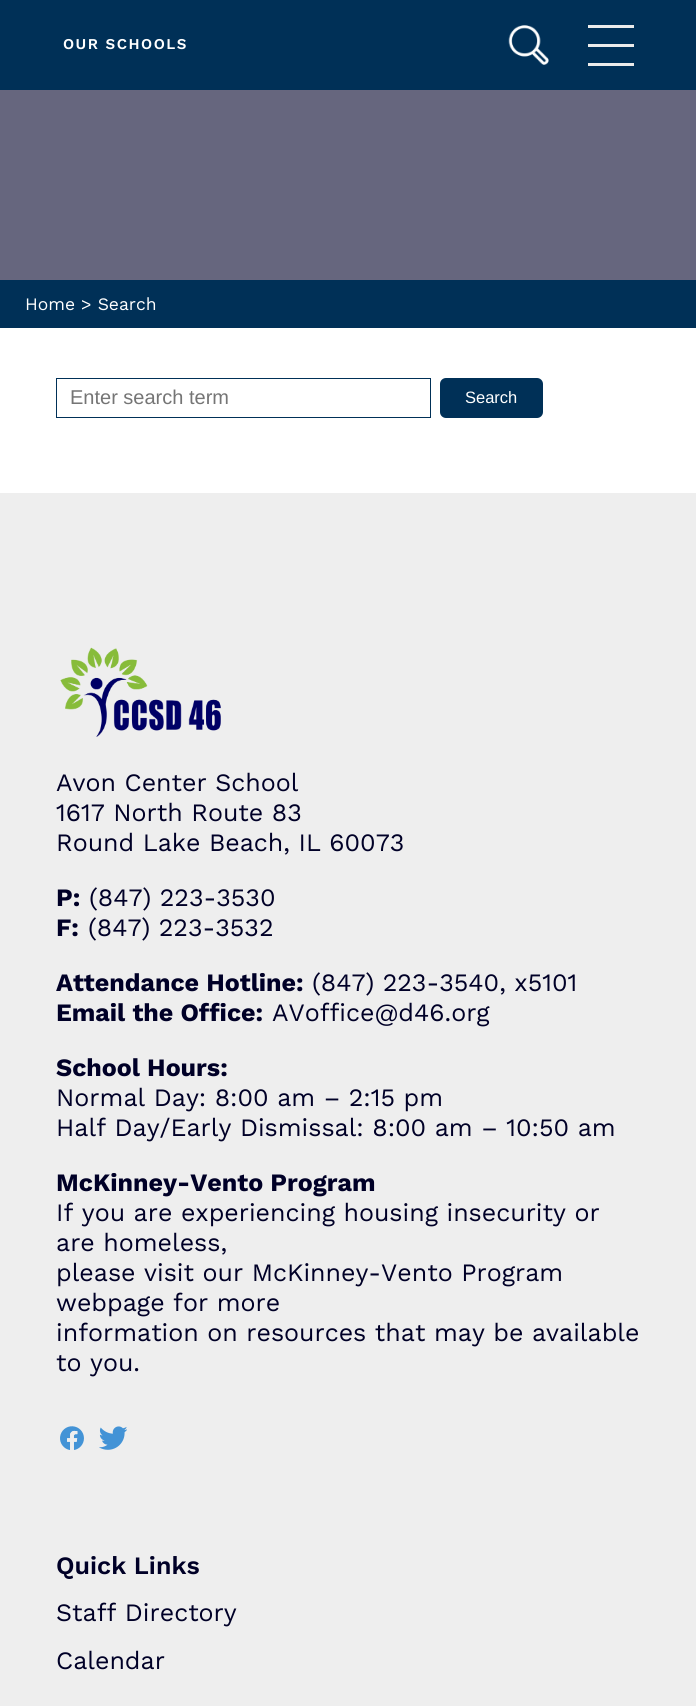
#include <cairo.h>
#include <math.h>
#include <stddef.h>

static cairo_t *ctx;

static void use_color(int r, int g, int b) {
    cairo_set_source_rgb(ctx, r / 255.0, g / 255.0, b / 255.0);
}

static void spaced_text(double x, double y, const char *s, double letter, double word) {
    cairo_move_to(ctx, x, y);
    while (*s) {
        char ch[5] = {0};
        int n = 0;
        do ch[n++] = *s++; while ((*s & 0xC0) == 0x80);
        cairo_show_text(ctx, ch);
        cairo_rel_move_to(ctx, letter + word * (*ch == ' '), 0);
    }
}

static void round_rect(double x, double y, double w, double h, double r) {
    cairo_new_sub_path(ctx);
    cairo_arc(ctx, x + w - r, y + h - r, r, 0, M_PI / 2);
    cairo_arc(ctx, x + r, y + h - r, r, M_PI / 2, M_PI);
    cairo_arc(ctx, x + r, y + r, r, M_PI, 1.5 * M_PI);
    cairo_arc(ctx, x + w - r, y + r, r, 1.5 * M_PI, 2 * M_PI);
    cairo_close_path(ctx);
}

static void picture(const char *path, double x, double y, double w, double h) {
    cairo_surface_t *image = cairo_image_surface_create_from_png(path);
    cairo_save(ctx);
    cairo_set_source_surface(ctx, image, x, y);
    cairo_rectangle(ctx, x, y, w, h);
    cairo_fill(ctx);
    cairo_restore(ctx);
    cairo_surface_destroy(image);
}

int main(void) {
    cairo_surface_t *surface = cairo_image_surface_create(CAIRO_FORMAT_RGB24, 696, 1706);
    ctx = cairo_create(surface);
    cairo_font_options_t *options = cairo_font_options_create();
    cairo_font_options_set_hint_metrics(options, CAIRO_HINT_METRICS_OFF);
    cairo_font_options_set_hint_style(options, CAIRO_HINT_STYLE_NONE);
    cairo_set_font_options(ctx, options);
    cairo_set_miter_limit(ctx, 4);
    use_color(255, 255, 255);
    cairo_paint(ctx);
    use_color(0, 48, 87);
    cairo_rectangle(ctx, 0, 0, 696, 90);
    cairo_fill(ctx);
    cairo_select_font_face(ctx, "Work Sans SemiBold", CAIRO_FONT_SLANT_NORMAL, CAIRO_FONT_WEIGHT_NORMAL);
    cairo_set_font_size(ctx, 15);
    use_color(255, 255, 255);
    spaced_text(63, 49, "OUR SCHOOLS", 1.5, 0);
    picture("img1.png", 508, 25, 41, 40);
    use_color(235, 235, 235);
    cairo_rectangle(ctx, 588, 44, 46, 3);
    cairo_fill(ctx);
    cairo_rectangle(ctx, 588, 25, 46, 3);
    cairo_fill(ctx);
    cairo_rectangle(ctx, 588, 63, 46, 3);
    cairo_fill(ctx);
    use_color(102, 102, 126);
    cairo_rectangle(ctx, 0, 90, 696, 190);
    cairo_fill(ctx);
    use_color(0, 48, 87);
    cairo_rectangle(ctx, 0, 280, 696, 48);
    cairo_fill(ctx);
    cairo_select_font_face(ctx, "Work Sans", CAIRO_FONT_SLANT_NORMAL, CAIRO_FONT_WEIGHT_NORMAL);
    cairo_set_font_size(ctx, 17.5);
    use_color(255, 255, 255);
    cairo_move_to(ctx, 25, 310);
    cairo_show_text(ctx, "Home > Search");
    cairo_rectangle(ctx, 56.5, 378.5, 374, 39);
    use_color(0, 48, 87);
    cairo_set_line_width(ctx, 1);
    cairo_stroke(ctx);
    cairo_select_font_face(ctx, "Liberation Sans", CAIRO_FONT_SLANT_NORMAL, CAIRO_FONT_WEIGHT_NORMAL);
    cairo_set_font_size(ctx, 20);
    use_color(117, 117, 117);
    cairo_move_to(ctx, 70, 404);
    cairo_show_text(ctx, "Enter search term");
    use_color(0, 48, 87);
    round_rect(440, 378, 103, 40, 6);
    cairo_fill(ctx);
    cairo_set_font_size(ctx, 16.5);
    use_color(255, 255, 255);
    cairo_move_to(ctx, 465, 403);
    cairo_show_text(ctx, "Search");
    use_color(238, 238, 238);
    cairo_rectangle(ctx, 0, 493, 696, 1213);
    cairo_fill(ctx);
    picture("img2.png", 60, 647, 161, 90);
    cairo_select_font_face(ctx, "Work Sans", CAIRO_FONT_SLANT_NORMAL, CAIRO_FONT_WEIGHT_NORMAL);
    cairo_set_font_size(ctx, 25);
    use_color(0, 0, 39);
    cairo_move_to(ctx, 56, 791);
    cairo_show_text(ctx, "Avon Center School");
    cairo_move_to(ctx, 56, 821);
    cairo_show_text(ctx, "1617 North Route 83");
    cairo_move_to(ctx, 56, 851);
    cairo_show_text(ctx, "Round Lake Beach, IL 60073");
    cairo_select_font_face(ctx, "Work Sans", CAIRO_FONT_SLANT_NORMAL, CAIRO_FONT_WEIGHT_BOLD);
    cairo_move_to(ctx, 56, 906);
    cairo_show_text(ctx, "P:");
    cairo_select_font_face(ctx, "Work Sans", CAIRO_FONT_SLANT_NORMAL, CAIRO_FONT_WEIGHT_NORMAL);
    cairo_move_to(ctx, 89, 906);
    cairo_show_text(ctx, "(847) 223-3530");
    cairo_select_font_face(ctx, "Work Sans", CAIRO_FONT_SLANT_NORMAL, CAIRO_FONT_WEIGHT_BOLD);
    cairo_move_to(ctx, 56, 936);
    cairo_show_text(ctx, "F:");
    cairo_select_font_face(ctx, "Work Sans", CAIRO_FONT_SLANT_NORMAL, CAIRO_FONT_WEIGHT_NORMAL);
    cairo_move_to(ctx, 88, 936);
    cairo_show_text(ctx, "(847) 223-3532");
    cairo_select_font_face(ctx, "Work Sans", CAIRO_FONT_SLANT_NORMAL, CAIRO_FONT_WEIGHT_BOLD);
    cairo_move_to(ctx, 56, 991);
    cairo_show_text(ctx, "Attendance Hotline:");
    cairo_select_font_face(ctx, "Work Sans", CAIRO_FONT_SLANT_NORMAL, CAIRO_FONT_WEIGHT_NORMAL);
    cairo_move_to(ctx, 312, 991);
    cairo_show_text(ctx, "(847) 223-3540, x5101");
    cairo_select_font_face(ctx, "Work Sans", CAIRO_FONT_SLANT_NORMAL, CAIRO_FONT_WEIGHT_BOLD);
    cairo_move_to(ctx, 56, 1021);
    cairo_show_text(ctx, "Email the Office:");
    cairo_select_font_face(ctx, "Work Sans", CAIRO_FONT_SLANT_NORMAL, CAIRO_FONT_WEIGHT_NORMAL);
    cairo_move_to(ctx, 272, 1021);
    cairo_show_text(ctx, "AVoffice@d46.org");
    cairo_select_font_face(ctx, "Work Sans", CAIRO_FONT_SLANT_NORMAL, CAIRO_FONT_WEIGHT_BOLD);
    cairo_move_to(ctx, 56, 1076);
    cairo_show_text(ctx, "School Hours:");
    cairo_select_font_face(ctx, "Work Sans", CAIRO_FONT_SLANT_NORMAL, CAIRO_FONT_WEIGHT_NORMAL);
    cairo_move_to(ctx, 56, 1106);
    cairo_show_text(ctx, "Normal Day: 8:00 am – 2:15 pm");
    cairo_move_to(ctx, 56, 1136);
    cairo_show_text(ctx, "Half Day/Early Dismissal: 8:00 am – 10:50 am");
    cairo_select_font_face(ctx, "Work Sans", CAIRO_FONT_SLANT_NORMAL, CAIRO_FONT_WEIGHT_BOLD);
    cairo_move_to(ctx, 56, 1191);
    cairo_show_text(ctx, "McKinney-Vento Program");
    cairo_select_font_face(ctx, "Work Sans", CAIRO_FONT_SLANT_NORMAL, CAIRO_FONT_WEIGHT_NORMAL);
    cairo_move_to(ctx, 56, 1221);
    cairo_show_text(ctx, "If you are experiencing housing insecurity or");
    cairo_move_to(ctx, 56, 1251);
    cairo_show_text(ctx, "are homeless,");
    cairo_move_to(ctx, 56, 1281);
    cairo_show_text(ctx, "please visit our McKinney-Vento Program");
    cairo_move_to(ctx, 56, 1311);
    cairo_show_text(ctx, "webpage for more");
    cairo_move_to(ctx, 56, 1341);
    cairo_show_text(ctx, "information on resources that may be available");
    cairo_move_to(ctx, 56, 1371);
    cairo_show_text(ctx, "to you.");
    picture("img3.png", 60, 1426, 24, 24);
    picture("img4.png", 99, 1426, 28, 24);
    cairo_select_font_face(ctx, "Work Sans SemiBold", CAIRO_FONT_SLANT_NORMAL, CAIRO_FONT_WEIGHT_NORMAL);
    cairo_move_to(ctx, 56, 1574);
    cairo_show_text(ctx, "Quick Links");
    cairo_select_font_face(ctx, "Work Sans", CAIRO_FONT_SLANT_NORMAL, CAIRO_FONT_WEIGHT_NORMAL);
    cairo_move_to(ctx, 56, 1621);
    cairo_show_text(ctx, "Staff Directory");
    cairo_move_to(ctx, 56, 1669);
    cairo_show_text(ctx, "Calendar");
    cairo_surface_write_to_png(surface, "result.png");
    cairo_font_options_destroy(options);
    cairo_destroy(ctx);
    cairo_surface_destroy(surface);
    return 0;
}
